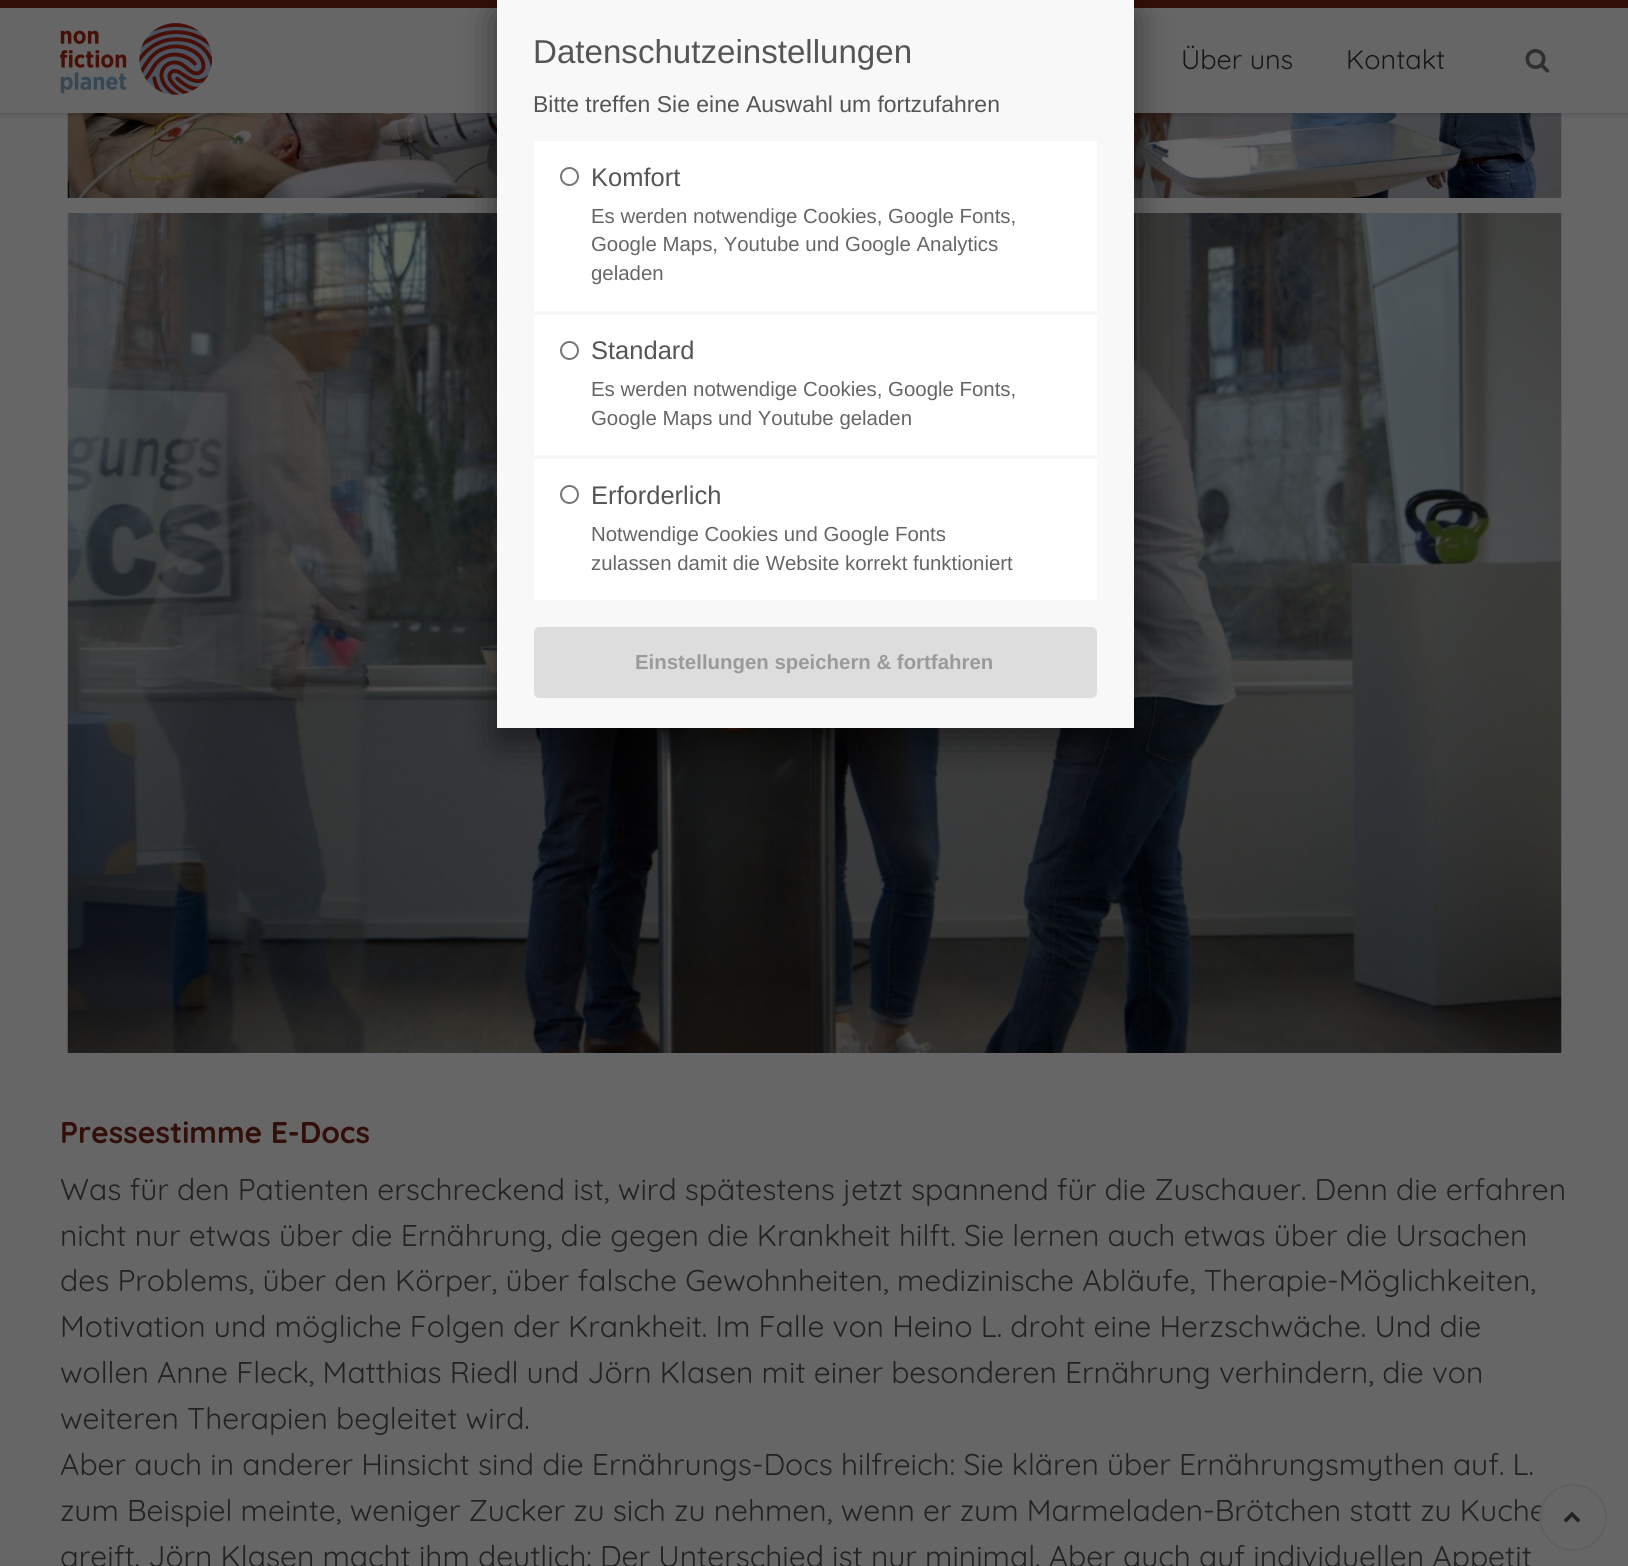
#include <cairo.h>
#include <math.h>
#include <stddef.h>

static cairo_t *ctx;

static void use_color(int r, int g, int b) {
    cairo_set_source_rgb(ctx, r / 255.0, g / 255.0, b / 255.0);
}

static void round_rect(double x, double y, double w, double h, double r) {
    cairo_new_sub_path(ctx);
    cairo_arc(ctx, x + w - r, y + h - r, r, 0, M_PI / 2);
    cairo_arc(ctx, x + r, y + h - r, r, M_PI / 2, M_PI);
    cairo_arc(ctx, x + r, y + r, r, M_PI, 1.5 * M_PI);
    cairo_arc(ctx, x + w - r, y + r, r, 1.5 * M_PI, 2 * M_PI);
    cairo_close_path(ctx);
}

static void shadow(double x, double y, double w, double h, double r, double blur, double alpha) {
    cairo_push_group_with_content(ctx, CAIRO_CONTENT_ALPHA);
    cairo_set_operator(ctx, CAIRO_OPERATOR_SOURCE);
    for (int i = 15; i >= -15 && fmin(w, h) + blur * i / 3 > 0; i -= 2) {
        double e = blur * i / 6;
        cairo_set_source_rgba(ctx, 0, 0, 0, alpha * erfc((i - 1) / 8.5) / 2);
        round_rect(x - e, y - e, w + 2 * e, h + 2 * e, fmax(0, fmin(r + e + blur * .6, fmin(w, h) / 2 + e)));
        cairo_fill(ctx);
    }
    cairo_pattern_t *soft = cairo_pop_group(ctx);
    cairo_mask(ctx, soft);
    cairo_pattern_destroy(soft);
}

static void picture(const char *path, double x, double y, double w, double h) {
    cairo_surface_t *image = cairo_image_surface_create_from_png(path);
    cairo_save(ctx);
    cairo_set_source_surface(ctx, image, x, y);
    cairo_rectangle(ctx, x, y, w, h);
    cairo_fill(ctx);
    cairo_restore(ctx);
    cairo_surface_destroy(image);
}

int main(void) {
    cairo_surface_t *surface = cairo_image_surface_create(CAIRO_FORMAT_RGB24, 1628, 1566);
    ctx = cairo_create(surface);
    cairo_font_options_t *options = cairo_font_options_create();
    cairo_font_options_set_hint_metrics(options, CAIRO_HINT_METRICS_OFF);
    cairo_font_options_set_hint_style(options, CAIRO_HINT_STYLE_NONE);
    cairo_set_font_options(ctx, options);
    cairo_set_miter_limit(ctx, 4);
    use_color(102, 102, 102);
    cairo_paint(ctx);
    picture("img3.png", 67, 113, 430, 85);
    picture("img4.png", 1134, 113, 428, 85);
    use_color(0, 0, 0);
    shadow(-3, -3, 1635, 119, 0, 1.5, 0.1);
    use_color(102, 102, 102);
    cairo_rectangle(ctx, 0, 8, 1628, 105);
    cairo_fill(ctx);
    use_color(51, 15, 9);
    cairo_rectangle(ctx, 0, 0, 1628, 8);
    cairo_fill(ctx);
    picture("img5.png", 67, 213, 1495, 840);
    use_color(0, 0, 0);
    shadow(497, 15, 637, 728, 0, 19, 0.5);
    use_color(248, 248, 248);
    cairo_rectangle(ctx, 497, 0, 637, 728);
    cairo_fill(ctx);
    cairo_select_font_face(ctx, "Liberation Sans", CAIRO_FONT_SLANT_NORMAL, CAIRO_FONT_WEIGHT_NORMAL);
    cairo_set_font_size(ctx, 33.1);
    use_color(85, 85, 85);
    cairo_move_to(ctx, 533, 63);
    cairo_show_text(ctx, "Datenschutzeinstellungen");
    cairo_set_font_size(ctx, 22.95);
    cairo_move_to(ctx, 533, 112);
    cairo_show_text(ctx, "Bitte treffen Sie eine Auswahl um fortzufahren");
    use_color(255, 255, 255);
    cairo_rectangle(ctx, 534, 141, 563, 170);
    cairo_fill(ctx);
    cairo_arc(ctx, 569.5, 176.5, 8.5, 0, 2 * M_PI);
    use_color(118, 118, 118);
    cairo_stroke(ctx);
    cairo_set_font_size(ctx, 25.5);
    use_color(85, 85, 85);
    cairo_move_to(ctx, 591, 186);
    cairo_show_text(ctx, "Komfort");
    cairo_set_font_size(ctx, 20.4);
    use_color(102, 102, 102);
    cairo_move_to(ctx, 591, 223);
    cairo_show_text(ctx, "Es werden notwendige Cookies, Google Fonts,");
    cairo_move_to(ctx, 591, 251);
    cairo_show_text(ctx, "Google Maps, Youtube und Google Analytics");
    cairo_move_to(ctx, 591, 280);
    cairo_show_text(ctx, "geladen");
    use_color(255, 255, 255);
    cairo_rectangle(ctx, 534, 315, 563, 140);
    cairo_fill(ctx);
    cairo_arc(ctx, 569.5, 350.5, 8.5, 0, 2 * M_PI);
    use_color(118, 118, 118);
    cairo_stroke(ctx);
    cairo_set_font_size(ctx, 25.5);
    use_color(85, 85, 85);
    cairo_move_to(ctx, 591, 359);
    cairo_show_text(ctx, "Standard");
    cairo_set_font_size(ctx, 20.4);
    use_color(102, 102, 102);
    cairo_move_to(ctx, 591, 396);
    cairo_show_text(ctx, "Es werden notwendige Cookies, Google Fonts,");
    cairo_move_to(ctx, 591, 425);
    cairo_show_text(ctx, "Google Maps und Youtube geladen");
    use_color(255, 255, 255);
    cairo_rectangle(ctx, 534, 459, 563, 141);
    cairo_fill(ctx);
    cairo_arc(ctx, 569.5, 494.5, 8.5, 0, 2 * M_PI);
    use_color(118, 118, 118);
    cairo_stroke(ctx);
    cairo_set_font_size(ctx, 25.5);
    use_color(85, 85, 85);
    cairo_move_to(ctx, 591, 504);
    cairo_show_text(ctx, "Erforderlich");
    cairo_set_font_size(ctx, 20.4);
    use_color(102, 102, 102);
    cairo_move_to(ctx, 591, 541);
    cairo_show_text(ctx, "Notwendige Cookies und Google Fonts");
    cairo_move_to(ctx, 591, 570);
    cairo_show_text(ctx, "zulassen damit die Website korrekt funktioniert");
    use_color(221, 221, 221);
    round_rect(535, 628, 561, 69, 4);
    cairo_fill_preserve(ctx);
    cairo_stroke(ctx);
    cairo_select_font_face(ctx, "Liberation Sans", CAIRO_FONT_SLANT_NORMAL, CAIRO_FONT_WEIGHT_BOLD);
    use_color(154, 154, 154);
    cairo_move_to(ctx, 635, 669);
    cairo_show_text(ctx, "Einstellungen speichern & fortfahren");
    picture("img1.png", 60, 23, 153, 72);
    cairo_select_font_face(ctx, "Quicksand", CAIRO_FONT_SLANT_NORMAL, CAIRO_FONT_WEIGHT_NORMAL);
    cairo_set_font_size(ctx, 27);
    use_color(23, 23, 23);
    cairo_move_to(ctx, 1181, 69);
    cairo_show_text(ctx, "Über uns");
    cairo_move_to(ctx, 1346, 69);
    cairo_show_text(ctx, "Kontakt");
    picture("img2.png", 1525, 49, 25, 24);
    cairo_select_font_face(ctx, "Quicksand", CAIRO_FONT_SLANT_NORMAL, CAIRO_FONT_WEIGHT_BOLD);
    cairo_set_font_size(ctx, 30);
    use_color(51, 15, 9);
    cairo_move_to(ctx, 60, 1143);
    cairo_show_text(ctx, "Pressestimme E-Docs");
    cairo_select_font_face(ctx, "Quicksand", CAIRO_FONT_SLANT_NORMAL, CAIRO_FONT_WEIGHT_NORMAL);
    use_color(34, 34, 34);
    cairo_move_to(ctx, 60, 1200);
    cairo_show_text(ctx, "Was für den Patienten erschreckend ist, wird spätestens jetzt spannend für die Zuschauer. Denn die erfahren");
    cairo_move_to(ctx, 60, 1246);
    cairo_show_text(ctx, "nicht nur etwas über die Ernährung, die gegen die Krankheit hilft. Sie lernen auch etwas über die Ursachen");
    cairo_move_to(ctx, 60, 1291);
    cairo_show_text(ctx, "des Problems, über den Körper, über falsche Gewohnheiten, medizinische Abläufe, Therapie-Möglichkeiten,");
    cairo_move_to(ctx, 60, 1337);
    cairo_show_text(ctx, "Motivation und mögliche Folgen der Krankheit. Im Falle von Heino L. droht eine Herzschwäche. Und die");
    cairo_move_to(ctx, 60, 1383);
    cairo_show_text(ctx, "wollen Anne Fleck, Matthias Riedl und Jörn Klasen mit einer besonderen Ernährung verhindern, die von");
    cairo_move_to(ctx, 60, 1429);
    cairo_show_text(ctx, "weiteren Therapien begleitet wird.");
    cairo_move_to(ctx, 60, 1475);
    cairo_show_text(ctx, "Aber auch in anderer Hinsicht sind die Ernährungs-Docs hilfreich: Sie klären über Ernährungsmythen auf. L.");
    cairo_move_to(ctx, 60, 1521);
    cairo_show_text(ctx, "zum Beispiel meinte, weniger Zucker zu sich zu nehmen, wenn er zum Marmeladen-Brötchen statt zu Kuche");
    cairo_move_to(ctx, 60, 1567);
    cairo_show_text(ctx, "greift. Jörn Klasen macht ihm deutlich: Der Unterschied ist nur minimal. Aber auch auf individuellen Appetit");
    cairo_set_source_rgba(ctx, 0.4, 0.4, 0.4, 0.9);
    round_rect(1540, 1485, 66, 65, 32.5);
    cairo_fill_preserve(ctx);
    use_color(94, 95, 94);
    cairo_stroke(ctx);
    picture("img6.png", 1564, 1512, 16, 11);
    cairo_surface_write_to_png(surface, "result.png");
    cairo_font_options_destroy(options);
    cairo_destroy(ctx);
    cairo_surface_destroy(surface);
    return 0;
}
